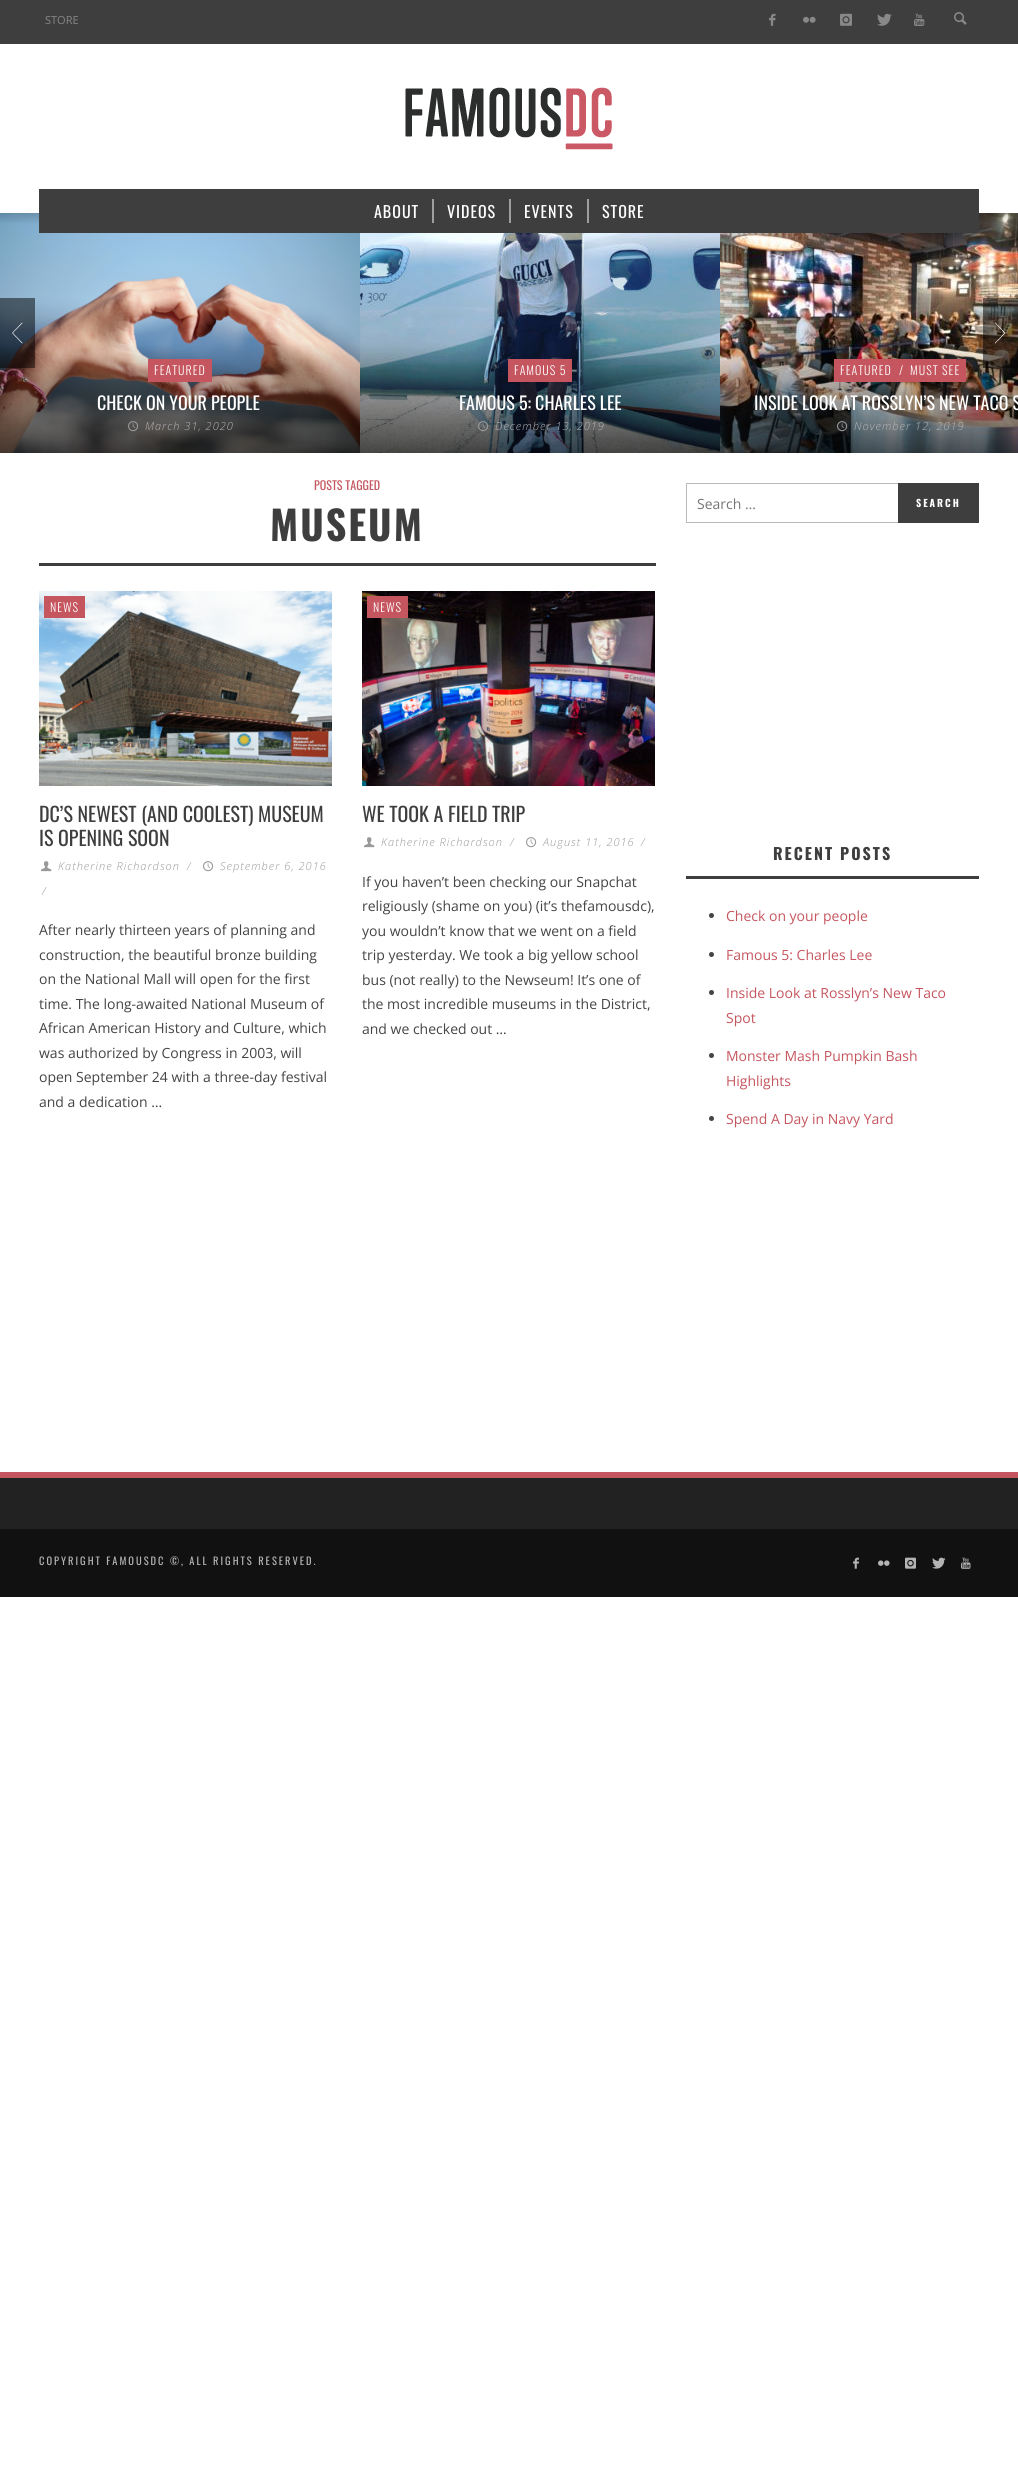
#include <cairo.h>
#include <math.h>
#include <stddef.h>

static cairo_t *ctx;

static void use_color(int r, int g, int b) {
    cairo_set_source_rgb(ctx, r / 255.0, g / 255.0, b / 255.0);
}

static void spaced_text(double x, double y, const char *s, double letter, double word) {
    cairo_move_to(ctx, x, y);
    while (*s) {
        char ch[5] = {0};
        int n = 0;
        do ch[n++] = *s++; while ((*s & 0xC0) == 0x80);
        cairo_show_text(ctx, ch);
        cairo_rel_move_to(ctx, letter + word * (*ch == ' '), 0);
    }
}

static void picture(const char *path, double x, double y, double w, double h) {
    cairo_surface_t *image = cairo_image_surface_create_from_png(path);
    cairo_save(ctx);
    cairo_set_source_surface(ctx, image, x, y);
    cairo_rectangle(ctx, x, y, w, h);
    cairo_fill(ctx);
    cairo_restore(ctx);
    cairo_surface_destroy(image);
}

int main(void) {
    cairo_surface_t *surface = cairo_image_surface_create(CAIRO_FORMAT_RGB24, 1018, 2490);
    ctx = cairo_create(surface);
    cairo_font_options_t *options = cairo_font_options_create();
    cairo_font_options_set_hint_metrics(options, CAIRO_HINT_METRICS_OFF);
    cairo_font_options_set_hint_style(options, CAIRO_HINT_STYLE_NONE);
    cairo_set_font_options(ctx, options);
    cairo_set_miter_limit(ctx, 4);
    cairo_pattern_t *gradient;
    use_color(255, 255, 255);
    cairo_paint(ctx);
    use_color(62, 62, 62);
    cairo_rectangle(ctx, 0, 0, 1018, 44);
    cairo_fill(ctx);
    cairo_select_font_face(ctx, "Open Sans", CAIRO_FONT_SLANT_NORMAL, CAIRO_FONT_WEIGHT_NORMAL);
    cairo_set_font_size(ctx, 11);
    use_color(136, 136, 136);
    cairo_move_to(ctx, 45, 24);
    cairo_show_text(ctx, "STORE");
    picture("img1.png", 769, 13, 7, 13);
    picture("img2.png", 803, 16, 13, 7);
    picture("img3.png", 840, 13, 12, 13);
    picture("img4.png", 877, 13, 15, 13);
    picture("img5.png", 914, 13, 11, 13);
    picture("img6.png", 954, 12, 13, 13);
    picture("img7.png", 405, 87, 208, 63);
    picture("img10.png", 0, 213, 360, 240);
    picture("img14.png", 720, 213, 298, 240);
    gradient = cairo_pattern_create_linear(509, 213, 509, 233);
    cairo_pattern_add_color_stop_rgba(gradient, 0, 0, 0, 0, 0.15);
    cairo_pattern_add_color_stop_rgba(gradient, 0.5, 0, 0, 0, 0.02);
    cairo_pattern_add_color_stop_rgba(gradient, 0.8, 0, 0, 0, 0);
    cairo_set_source(ctx, gradient);
    cairo_pattern_destroy(gradient);
    cairo_rectangle(ctx, 0, 213, 1018, 10);
    cairo_fill(ctx);
    use_color(62, 62, 62);
    cairo_rectangle(ctx, 39, 189, 940, 44);
    cairo_fill(ctx);
    cairo_select_font_face(ctx, "Oswald", CAIRO_FONT_SLANT_NORMAL, CAIRO_FONT_WEIGHT_NORMAL);
    cairo_set_font_size(ctx, 16);
    use_color(255, 255, 255);
    spaced_text(374, 218, "ABOUT", 1, 0);
    use_color(159, 159, 159);
    cairo_rectangle(ctx, 432, 199, 2, 24);
    cairo_fill(ctx);
    use_color(255, 255, 255);
    spaced_text(447, 218, "VIDEOS", 1, 0);
    use_color(159, 159, 159);
    cairo_rectangle(ctx, 509, 199, 2, 24);
    cairo_fill(ctx);
    use_color(255, 255, 255);
    spaced_text(524, 218, "EVENTS", 1, 0);
    use_color(159, 159, 159);
    cairo_rectangle(ctx, 587, 199, 2, 24);
    cairo_fill(ctx);
    use_color(255, 255, 255);
    spaced_text(602, 218, "STORE", 1, 0);
    cairo_set_source_rgba(ctx, 0, 0, 0, 0.5);
    cairo_rectangle(ctx, 0, 298, 35, 70);
    cairo_fill(ctx);
    picture("img8.png", 12, 322, 11, 22);
    cairo_rectangle(ctx, 983, 298, 35, 70);
    cairo_fill(ctx);
    picture("img9.png", 995, 322, 11, 22);
    use_color(197, 86, 95);
    cairo_rectangle(ctx, 148, 359, 64, 23);
    cairo_fill(ctx);
    cairo_select_font_face(ctx, "Oswald Light", CAIRO_FONT_SLANT_NORMAL, CAIRO_FONT_WEIGHT_NORMAL);
    cairo_set_font_size(ctx, 12);
    use_color(255, 255, 255);
    spaced_text(154, 375, "FEATURED", 1, 0);
    cairo_select_font_face(ctx, "Oswald", CAIRO_FONT_SLANT_NORMAL, CAIRO_FONT_WEIGHT_NORMAL);
    cairo_set_font_size(ctx, 18);
    cairo_move_to(ctx, 97, 410);
    cairo_show_text(ctx, "CHECK ON YOUR PEOPLE");
    picture("img11.png", 128, 421, 11, 11);
    cairo_select_font_face(ctx, "Open Sans Light", CAIRO_FONT_SLANT_ITALIC, CAIRO_FONT_WEIGHT_NORMAL);
    cairo_set_font_size(ctx, 11);
    use_color(180, 180, 180);
    spaced_text(145, 430, "March 31, 2020", 1, 0);
    picture("img12.png", 360, 233, 360, 220);
    use_color(197, 86, 95);
    cairo_rectangle(ctx, 508, 359, 64, 23);
    cairo_fill(ctx);
    cairo_select_font_face(ctx, "Oswald Light", CAIRO_FONT_SLANT_NORMAL, CAIRO_FONT_WEIGHT_NORMAL);
    cairo_set_font_size(ctx, 12);
    use_color(255, 255, 255);
    spaced_text(514, 375, "FAMOUS 5", 1, 0);
    cairo_select_font_face(ctx, "Oswald", CAIRO_FONT_SLANT_NORMAL, CAIRO_FONT_WEIGHT_NORMAL);
    cairo_set_font_size(ctx, 18);
    cairo_move_to(ctx, 459, 410);
    cairo_show_text(ctx, "FAMOUS 5: CHARLES LEE");
    picture("img13.png", 478, 421, 11, 11);
    cairo_select_font_face(ctx, "Open Sans Light", CAIRO_FONT_SLANT_ITALIC, CAIRO_FONT_WEIGHT_NORMAL);
    cairo_set_font_size(ctx, 11);
    use_color(180, 180, 180);
    spaced_text(495, 430, "December 13, 2019", 1, 0);
    use_color(197, 86, 95);
    cairo_rectangle(ctx, 834, 359, 132, 23);
    cairo_fill(ctx);
    cairo_select_font_face(ctx, "Oswald Light", CAIRO_FONT_SLANT_NORMAL, CAIRO_FONT_WEIGHT_NORMAL);
    cairo_set_font_size(ctx, 12);
    use_color(255, 255, 255);
    spaced_text(840, 375, "FEATURED", 1, 0);
    cairo_move_to(ctx, 899, 375);
    cairo_show_text(ctx, "/");
    spaced_text(910, 375, "MUST SEE", 1, 0);
    cairo_select_font_face(ctx, "Oswald", CAIRO_FONT_SLANT_NORMAL, CAIRO_FONT_WEIGHT_NORMAL);
    cairo_set_font_size(ctx, 18);
    cairo_move_to(ctx, 754, 410);
    cairo_show_text(ctx, "INSIDE LOOK AT ROSSLYN’S NEW TACO S");
    picture("img15.png", 837, 421, 11, 11);
    cairo_select_font_face(ctx, "Open Sans Light", CAIRO_FONT_SLANT_ITALIC, CAIRO_FONT_WEIGHT_NORMAL);
    cairo_set_font_size(ctx, 11);
    use_color(180, 180, 180);
    spaced_text(854, 430, "November 12, 2019", 1, 0);
    use_color(62, 62, 62);
    cairo_rectangle(ctx, 39, 563, 617, 3);
    cairo_fill(ctx);
    cairo_select_font_face(ctx, "Oswald", CAIRO_FONT_SLANT_NORMAL, CAIRO_FONT_WEIGHT_NORMAL);
    cairo_set_font_size(ctx, 12);
    use_color(197, 86, 95);
    cairo_move_to(ctx, 314, 490);
    cairo_show_text(ctx, "POSTS TAGGED");
    cairo_select_font_face(ctx, "Oswald", CAIRO_FONT_SLANT_NORMAL, CAIRO_FONT_WEIGHT_BOLD);
    cairo_set_font_size(ctx, 40);
    use_color(62, 62, 62);
    spaced_text(270, 541, "MUSEUM", 2, 0);
    picture("img16.png", 39, 591, 293, 195);
    use_color(197, 86, 95);
    cairo_rectangle(ctx, 44, 596, 41, 22);
    cairo_fill(ctx);
    cairo_select_font_face(ctx, "Oswald Light", CAIRO_FONT_SLANT_NORMAL, CAIRO_FONT_WEIGHT_NORMAL);
    cairo_set_font_size(ctx, 12);
    use_color(255, 255, 255);
    spaced_text(50, 612, "NEWS", 1, 0);
    cairo_select_font_face(ctx, "Oswald", CAIRO_FONT_SLANT_NORMAL, CAIRO_FONT_WEIGHT_NORMAL);
    cairo_set_font_size(ctx, 20);
    use_color(62, 62, 62);
    cairo_move_to(ctx, 39, 822);
    cairo_show_text(ctx, "DC’S NEWEST (AND COOLEST) MUSEUM");
    cairo_move_to(ctx, 39, 846);
    cairo_show_text(ctx, "IS OPENING SOON");
    picture("img17.png", 41, 861, 11, 11);
    cairo_select_font_face(ctx, "Open Sans Light", CAIRO_FONT_SLANT_ITALIC, CAIRO_FONT_WEIGHT_NORMAL);
    cairo_set_font_size(ctx, 11);
    use_color(153, 153, 153);
    spaced_text(58, 870, "Katherine Richardson", 1, 0);
    spaced_text(187, 870, "/", 1, 0);
    picture("img18.png", 203, 861, 11, 11);
    spaced_text(220, 870, "September 6, 2016", 1, 0);
    spaced_text(42, 895, "/", 1, 0);
    cairo_select_font_face(ctx, "Open Sans", CAIRO_FONT_SLANT_NORMAL, CAIRO_FONT_WEIGHT_NORMAL);
    cairo_set_font_size(ctx, 14);
    use_color(68, 68, 68);
    cairo_move_to(ctx, 39, 935);
    cairo_show_text(ctx, "After nearly thirteen years of planning and");
    cairo_move_to(ctx, 39, 960);
    cairo_show_text(ctx, "construction, the beautiful bronze building");
    cairo_move_to(ctx, 39, 984);
    cairo_show_text(ctx, "on the National Mall will open for the first");
    cairo_move_to(ctx, 39, 1009);
    cairo_show_text(ctx, "time. The long-awaited National Museum of");
    cairo_move_to(ctx, 39, 1033);
    cairo_show_text(ctx, "African American History and Culture, which");
    cairo_move_to(ctx, 39, 1058);
    cairo_show_text(ctx, "was authorized by Congress in 2003, will");
    cairo_move_to(ctx, 39, 1082);
    cairo_show_text(ctx, "open September 24 with a three-day festival");
    cairo_move_to(ctx, 39, 1107);
    cairo_show_text(ctx, "and a dedication …");
    picture("img19.png", 362, 591, 293, 195);
    use_color(197, 86, 95);
    cairo_rectangle(ctx, 367, 596, 41, 22);
    cairo_fill(ctx);
    cairo_select_font_face(ctx, "Oswald Light", CAIRO_FONT_SLANT_NORMAL, CAIRO_FONT_WEIGHT_NORMAL);
    cairo_set_font_size(ctx, 12);
    use_color(255, 255, 255);
    spaced_text(373, 612, "NEWS", 1, 0);
    cairo_select_font_face(ctx, "Oswald", CAIRO_FONT_SLANT_NORMAL, CAIRO_FONT_WEIGHT_NORMAL);
    cairo_set_font_size(ctx, 20);
    use_color(62, 62, 62);
    cairo_move_to(ctx, 362, 822);
    cairo_show_text(ctx, "WE TOOK A FIELD TRIP");
    picture("img17.png", 364, 837, 11, 11);
    cairo_select_font_face(ctx, "Open Sans Light", CAIRO_FONT_SLANT_ITALIC, CAIRO_FONT_WEIGHT_NORMAL);
    cairo_set_font_size(ctx, 11);
    use_color(153, 153, 153);
    spaced_text(381, 846, "Katherine Richardson", 1, 0);
    spaced_text(510, 846, "/", 1, 0);
    picture("img18.png", 526, 837, 11, 11);
    spaced_text(543, 846, "August 11, 2016", 1, 0);
    spaced_text(641, 846, "/", 1, 0);
    cairo_select_font_face(ctx, "Open Sans", CAIRO_FONT_SLANT_NORMAL, CAIRO_FONT_WEIGHT_NORMAL);
    cairo_set_font_size(ctx, 14);
    use_color(68, 68, 68);
    cairo_move_to(ctx, 362, 887);
    cairo_show_text(ctx, "If you haven’t been checking our Snapchat");
    cairo_move_to(ctx, 362, 911);
    cairo_show_text(ctx, "religiously (shame on you) (it’s thefamousdc),");
    cairo_move_to(ctx, 362, 936);
    cairo_show_text(ctx, "you wouldn’t know that we went on a field");
    cairo_move_to(ctx, 362, 960);
    cairo_show_text(ctx, "trip yesterday. We took a big yellow school");
    cairo_move_to(ctx, 362, 985);
    cairo_show_text(ctx, "bus (not really) to the Newseum! It’s one of");
    cairo_move_to(ctx, 362, 1009);
    cairo_show_text(ctx, "the most incredible museums in the District,");
    cairo_move_to(ctx, 362, 1034);
    cairo_show_text(ctx, "and we checked out …");
    cairo_rectangle(ctx, 686.5, 483.5, 292, 39);
    use_color(187, 187, 187);
    cairo_set_line_width(ctx, 1);
    cairo_stroke(ctx);
    use_color(117, 117, 117);
    cairo_move_to(ctx, 697, 509);
    cairo_show_text(ctx, "Search …");
    use_color(62, 62, 62);
    cairo_rectangle(ctx, 898, 483, 81, 40);
    cairo_fill(ctx);
    cairo_select_font_face(ctx, "Oswald", CAIRO_FONT_SLANT_NORMAL, CAIRO_FONT_WEIGHT_BOLD);
    cairo_set_font_size(ctx, 10);
    use_color(255, 255, 255);
    spaced_text(916, 507, "SEARCH", 2, 0);
    use_color(62, 62, 62);
    cairo_rectangle(ctx, 686, 876, 293, 3);
    cairo_fill(ctx);
    cairo_set_font_size(ctx, 16);
    spaced_text(773, 860, "RECENT POSTS", 2, 0);
    use_color(68, 68, 68);
    cairo_new_path(ctx);
    cairo_arc(ctx, 711.5, 915.5, 2.5, 0, 2 * M_PI);
    cairo_fill(ctx);
    cairo_select_font_face(ctx, "Open Sans", CAIRO_FONT_SLANT_NORMAL, CAIRO_FONT_WEIGHT_NORMAL);
    cairo_set_font_size(ctx, 14);
    use_color(197, 86, 95);
    cairo_move_to(ctx, 726, 921);
    cairo_show_text(ctx, "Check on your people");
    use_color(68, 68, 68);
    cairo_new_path(ctx);
    cairo_arc(ctx, 711.5, 954.5, 2.5, 0, 2 * M_PI);
    cairo_fill(ctx);
    use_color(197, 86, 95);
    cairo_move_to(ctx, 726, 960);
    cairo_show_text(ctx, "Famous 5: Charles Lee");
    use_color(68, 68, 68);
    cairo_new_path(ctx);
    cairo_arc(ctx, 711.5, 992.5, 2.5, 0, 2 * M_PI);
    cairo_fill(ctx);
    use_color(197, 86, 95);
    cairo_move_to(ctx, 726, 998);
    cairo_show_text(ctx, "Inside Look at Rosslyn’s New Taco");
    cairo_move_to(ctx, 726, 1023);
    cairo_show_text(ctx, "Spot");
    use_color(68, 68, 68);
    cairo_new_path(ctx);
    cairo_arc(ctx, 711.5, 1055.5, 2.5, 0, 2 * M_PI);
    cairo_fill(ctx);
    use_color(197, 86, 95);
    cairo_move_to(ctx, 726, 1061);
    cairo_show_text(ctx, "Monster Mash Pumpkin Bash");
    cairo_move_to(ctx, 726, 1086);
    cairo_show_text(ctx, "Highlights");
    use_color(68, 68, 68);
    cairo_new_path(ctx);
    cairo_arc(ctx, 711.5, 1118.5, 2.5, 0, 2 * M_PI);
    cairo_fill(ctx);
    use_color(197, 86, 95);
    cairo_move_to(ctx, 726, 1124);
    cairo_show_text(ctx, "Spend A Day in Navy Yard");
    use_color(34, 34, 34);
    cairo_rectangle(ctx, 0, 1478, 1018, 51);
    cairo_fill(ctx);
    use_color(197, 86, 95);
    cairo_rectangle(ctx, 0, 1472, 1018, 6);
    cairo_fill(ctx);
    use_color(17, 17, 17);
    cairo_rectangle(ctx, 0, 1529, 1018, 68);
    cairo_fill(ctx);
    cairo_select_font_face(ctx, "Oswald", CAIRO_FONT_SLANT_NORMAL, CAIRO_FONT_WEIGHT_NORMAL);
    cairo_set_font_size(ctx, 10.45);
    use_color(180, 180, 180);
    spaced_text(39, 1565, "COPYRIGHT FAMOUSDC ©, ALL RIGHTS RESERVED.", 2, 0);
    picture("img20.png", 853, 1557, 6, 12);
    picture("img21.png", 878, 1560, 12, 6);
    picture("img22.png", 905, 1557, 11, 12);
    picture("img23.png", 932, 1557, 14, 12);
    picture("img24.png", 961, 1557, 10, 12);
    cairo_surface_write_to_png(surface, "result.png");
    cairo_font_options_destroy(options);
    cairo_destroy(ctx);
    cairo_surface_destroy(surface);
    return 0;
}
